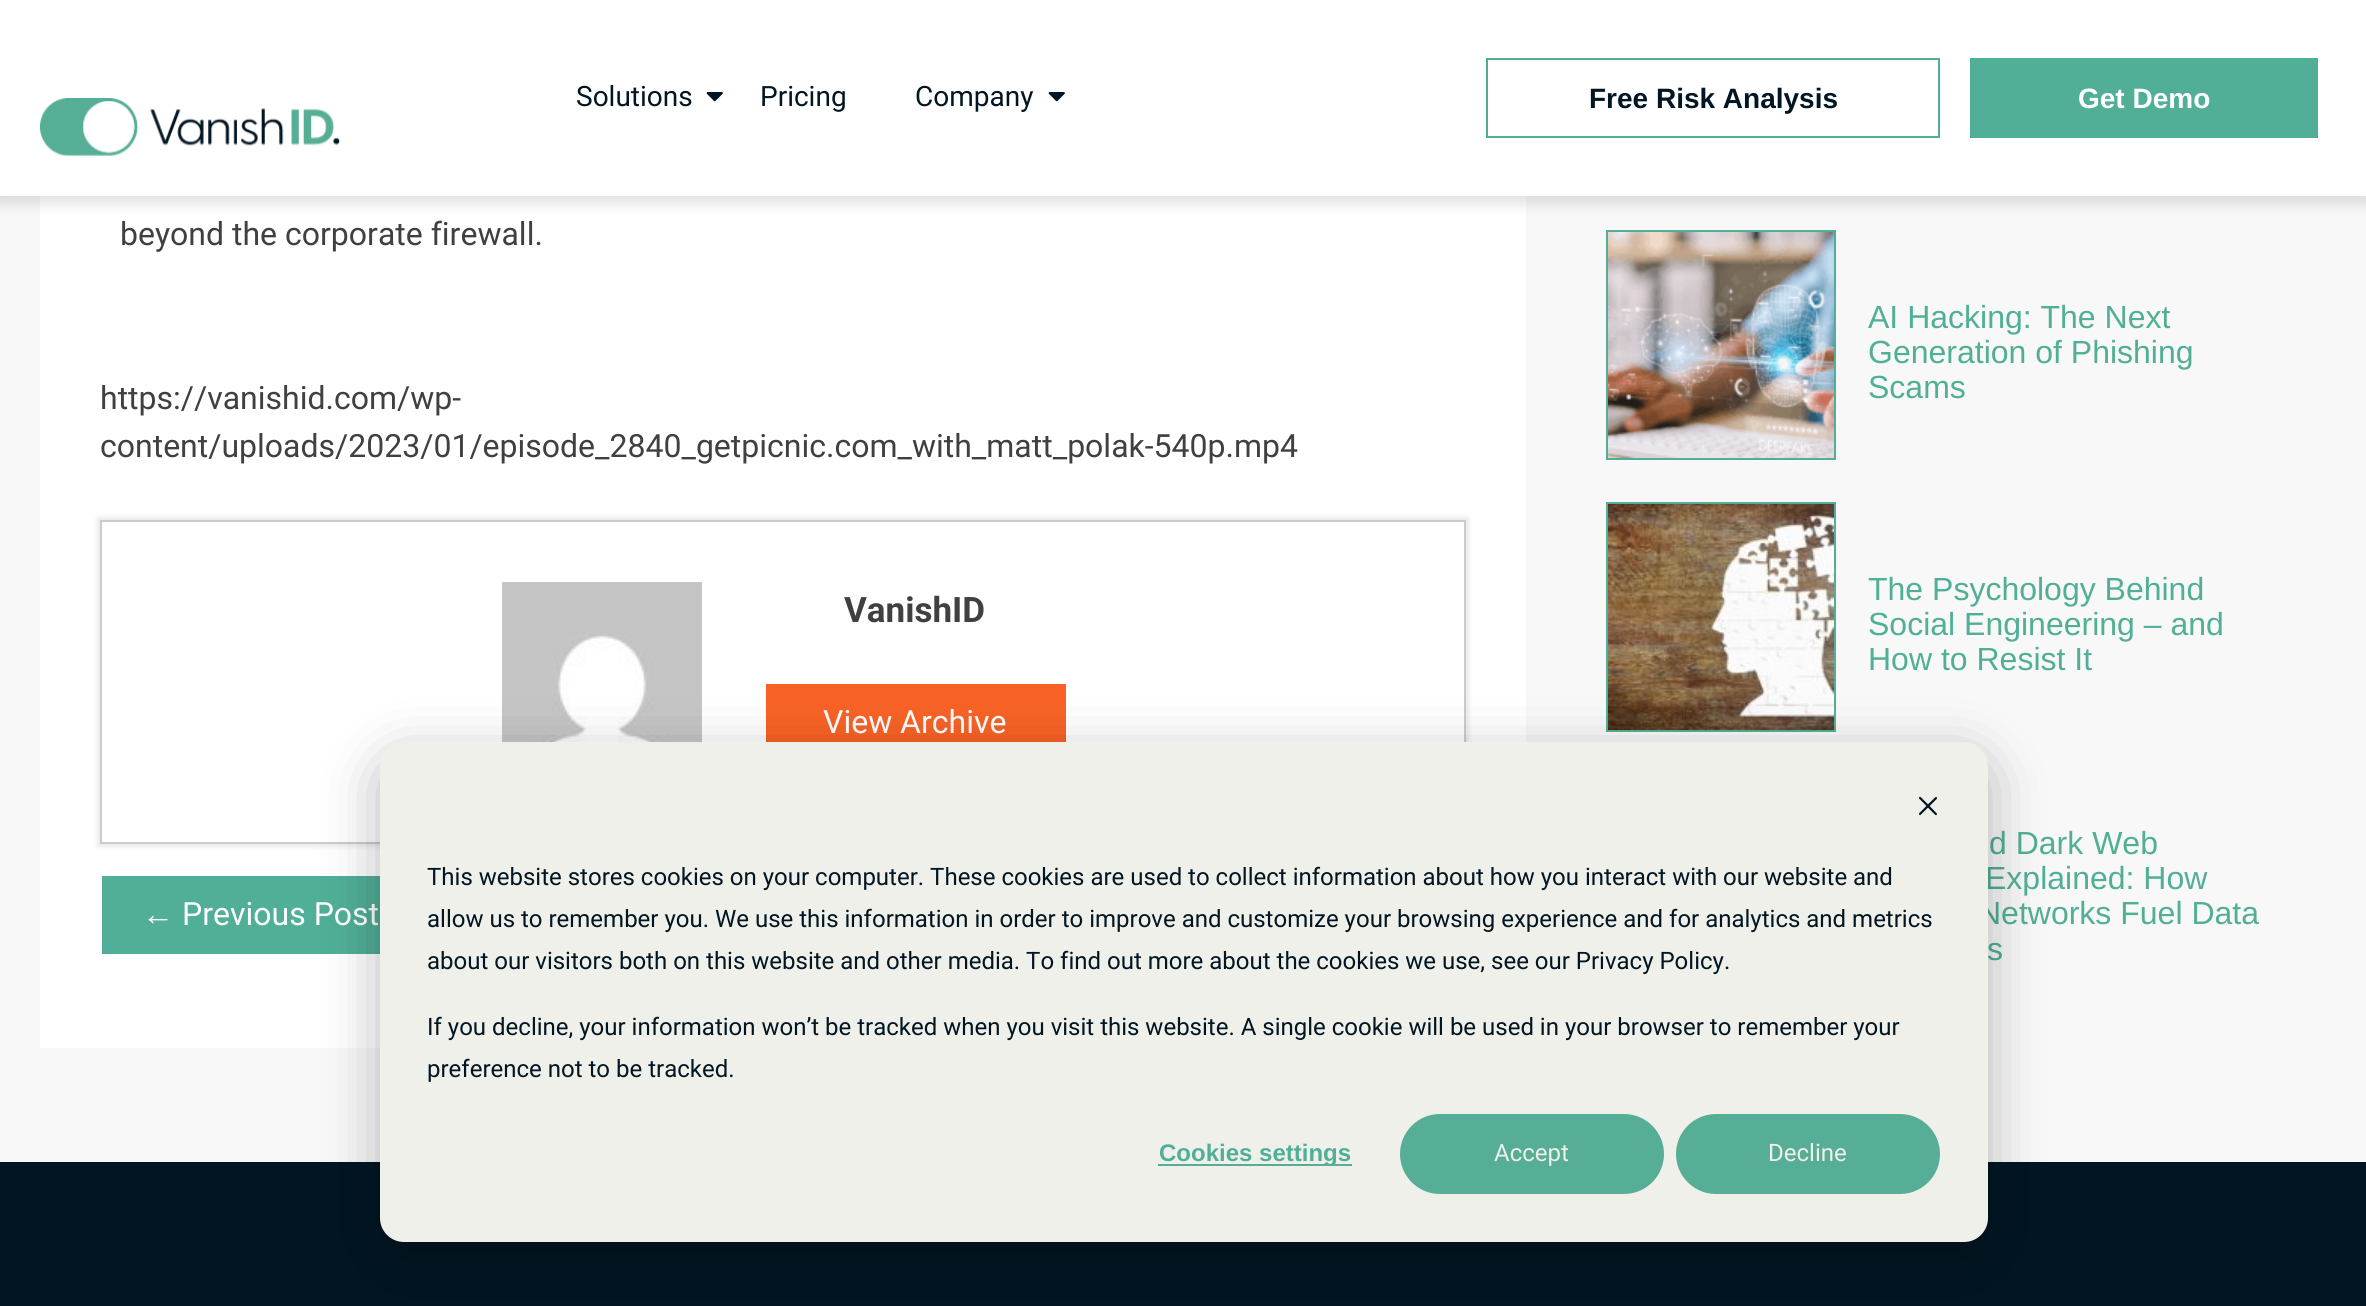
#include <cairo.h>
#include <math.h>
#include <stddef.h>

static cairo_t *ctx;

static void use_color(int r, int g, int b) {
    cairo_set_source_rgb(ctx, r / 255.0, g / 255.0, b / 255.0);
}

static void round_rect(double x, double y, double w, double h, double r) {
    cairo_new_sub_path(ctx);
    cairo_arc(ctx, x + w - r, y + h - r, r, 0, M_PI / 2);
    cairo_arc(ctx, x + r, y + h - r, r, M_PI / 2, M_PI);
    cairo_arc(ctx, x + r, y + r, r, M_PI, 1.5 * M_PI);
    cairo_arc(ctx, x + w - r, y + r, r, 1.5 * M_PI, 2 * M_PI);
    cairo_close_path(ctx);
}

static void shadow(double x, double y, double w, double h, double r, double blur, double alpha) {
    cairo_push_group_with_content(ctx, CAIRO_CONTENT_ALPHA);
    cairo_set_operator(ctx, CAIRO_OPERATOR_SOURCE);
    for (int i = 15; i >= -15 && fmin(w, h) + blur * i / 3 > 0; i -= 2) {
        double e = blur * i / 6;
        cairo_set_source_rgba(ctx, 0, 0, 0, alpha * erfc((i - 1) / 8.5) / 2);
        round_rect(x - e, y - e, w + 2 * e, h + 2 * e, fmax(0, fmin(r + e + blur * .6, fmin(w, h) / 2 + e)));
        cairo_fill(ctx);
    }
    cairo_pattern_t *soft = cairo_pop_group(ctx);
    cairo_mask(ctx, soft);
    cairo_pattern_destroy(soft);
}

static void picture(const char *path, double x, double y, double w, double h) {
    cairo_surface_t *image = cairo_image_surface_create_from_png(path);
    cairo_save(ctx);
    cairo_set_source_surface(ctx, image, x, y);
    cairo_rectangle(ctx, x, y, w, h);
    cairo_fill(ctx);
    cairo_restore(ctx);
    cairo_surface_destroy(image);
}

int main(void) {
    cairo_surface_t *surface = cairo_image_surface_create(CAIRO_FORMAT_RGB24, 2366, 1306);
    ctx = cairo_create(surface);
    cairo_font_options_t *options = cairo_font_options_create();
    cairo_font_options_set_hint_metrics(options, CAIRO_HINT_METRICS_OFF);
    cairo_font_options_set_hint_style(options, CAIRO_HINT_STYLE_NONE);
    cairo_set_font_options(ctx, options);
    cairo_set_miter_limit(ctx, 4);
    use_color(248, 248, 248);
    cairo_paint(ctx);
    use_color(255, 255, 255);
    cairo_rectangle(ctx, 40, 196, 1486, 852);
    cairo_fill(ctx);
    use_color(0, 0, 0);
    shadow(-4, 0, 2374, 204, 0, 7, 0.12);
    use_color(255, 255, 255);
    cairo_rectangle(ctx, 0, 0, 2366, 196);
    cairo_fill(ctx);
    picture("img1.png", 40, 98, 300, 58);
    cairo_select_font_face(ctx, "Roboto", CAIRO_FONT_SLANT_NORMAL, CAIRO_FONT_WEIGHT_NORMAL);
    cairo_set_font_size(ctx, 28);
    use_color(1, 22, 34);
    cairo_move_to(ctx, 576, 106);
    cairo_show_text(ctx, "Solutions");
    picture("img2.png", 706, 92, 17, 10);
    cairo_move_to(ctx, 760, 106);
    cairo_show_text(ctx, "Pricing");
    cairo_move_to(ctx, 915, 106);
    cairo_show_text(ctx, "Company");
    picture("img2.png", 1048, 92, 17, 10);
    cairo_rectangle(ctx, 1487, 59, 452, 78);
    use_color(81, 175, 151);
    cairo_stroke(ctx);
    cairo_select_font_face(ctx, "Liberation Sans", CAIRO_FONT_SLANT_NORMAL, CAIRO_FONT_WEIGHT_BOLD);
    use_color(1, 22, 34);
    cairo_move_to(ctx, 1589, 108);
    cairo_show_text(ctx, "Free Risk Analysis");
    use_color(81, 175, 151);
    cairo_rectangle(ctx, 1970, 58, 348, 80);
    cairo_fill(ctx);
    use_color(255, 255, 255);
    cairo_move_to(ctx, 2078, 108);
    cairo_show_text(ctx, "Get Demo");
    cairo_select_font_face(ctx, "Roboto", CAIRO_FONT_SLANT_NORMAL, CAIRO_FONT_WEIGHT_NORMAL);
    cairo_set_font_size(ctx, 32);
    use_color(64, 64, 64);
    cairo_move_to(ctx, 120, 245);
    cairo_show_text(ctx, "beyond the corporate firewall.");
    cairo_move_to(ctx, 100, 409);
    cairo_show_text(ctx, "https://vanishid.com/wp-");
    cairo_move_to(ctx, 100, 457);
    cairo_show_text(ctx, "content/uploads/2023/01/episode_2840_getpicnic.com_with_matt_polak-540p.mp4");
    cairo_save(ctx);
    cairo_set_fill_rule(ctx, CAIRO_FILL_RULE_EVEN_ODD);
    cairo_new_path(ctx);
    cairo_move_to(ctx, 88, 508);
    cairo_line_to(ctx, 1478, 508);
    cairo_line_to(ctx, 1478, 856);
    cairo_line_to(ctx, 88, 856);
    cairo_close_path(ctx);
    cairo_move_to(ctx, 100, 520);
    cairo_line_to(ctx, 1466, 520);
    cairo_line_to(ctx, 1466, 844);
    cairo_line_to(ctx, 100, 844);
    cairo_close_path(ctx);
    cairo_clip(ctx);
    use_color(0, 0, 0);
    shadow(98, 518, 1370, 328, 0, 3, 0.11);
    cairo_restore(ctx);
    cairo_rectangle(ctx, 101, 521, 1364, 322);
    use_color(204, 204, 204);
    cairo_stroke(ctx);
    picture("img3.png", 502, 582, 200, 160);
    cairo_select_font_face(ctx, "Roboto", CAIRO_FONT_SLANT_NORMAL, CAIRO_FONT_WEIGHT_BOLD);
    cairo_set_font_size(ctx, 35);
    use_color(64, 64, 64);
    cairo_move_to(ctx, 844, 622);
    cairo_show_text(ctx, "VanishID");
    use_color(249, 98, 38);
    cairo_rectangle(ctx, 766, 684, 300, 58);
    cairo_fill(ctx);
    cairo_select_font_face(ctx, "Roboto", CAIRO_FONT_SLANT_NORMAL, CAIRO_FONT_WEIGHT_NORMAL);
    cairo_set_font_size(ctx, 32);
    use_color(255, 255, 255);
    cairo_move_to(ctx, 823, 733);
    cairo_show_text(ctx, "View Archive");
    use_color(81, 175, 151);
    cairo_rectangle(ctx, 102, 876, 278, 78);
    cairo_fill(ctx);
    cairo_select_font_face(ctx, "Liberation Sans", CAIRO_FONT_SLANT_NORMAL, CAIRO_FONT_WEIGHT_NORMAL);
    use_color(255, 255, 255);
    cairo_move_to(ctx, 142, 925);
    cairo_show_text(ctx, "←");
    cairo_select_font_face(ctx, "Roboto", CAIRO_FONT_SLANT_NORMAL, CAIRO_FONT_WEIGHT_NORMAL);
    cairo_move_to(ctx, 182, 925);
    cairo_show_text(ctx, "Previous Post");
    cairo_rectangle(ctx, 1607, 231, 228, 228);
    use_color(81, 175, 151);
    cairo_stroke(ctx);
    picture("img4.png", 1608, 232, 226, 226);
    cairo_select_font_face(ctx, "Liberation Sans", CAIRO_FONT_SLANT_NORMAL, CAIRO_FONT_WEIGHT_NORMAL);
    cairo_move_to(ctx, 1868, 328);
    cairo_show_text(ctx, "AI Hacking: The Next");
    cairo_move_to(ctx, 1868, 363);
    cairo_show_text(ctx, "Generation of Phishing");
    cairo_move_to(ctx, 1868, 398);
    cairo_show_text(ctx, "Scams");
    cairo_rectangle(ctx, 1607, 503, 228, 228);
    cairo_stroke(ctx);
    picture("img5.png", 1608, 504, 226, 226);
    cairo_move_to(ctx, 1868, 600);
    cairo_show_text(ctx, "The Psychology Behind");
    cairo_move_to(ctx, 1868, 635);
    cairo_show_text(ctx, "Social Engineering – and");
    cairo_move_to(ctx, 1868, 670);
    cairo_show_text(ctx, "How to Resist It");
    cairo_move_to(ctx, 1989, 854);
    cairo_show_text(ctx, "d Dark Web");
    cairo_move_to(ctx, 1985, 889);
    cairo_show_text(ctx, "Explained: How");
    cairo_move_to(ctx, 1978, 924);
    cairo_show_text(ctx, "Networks Fuel Data");
    cairo_move_to(ctx, 1987, 960);
    cairo_show_text(ctx, "s");
    use_color(1, 22, 34);
    cairo_rectangle(ctx, 0, 1162, 2366, 144);
    cairo_fill(ctx);
    use_color(0, 0, 0);
    shadow(380, 758, 1608, 500, 24, 28, 0.28);
    use_color(239, 240, 234);
    round_rect(380, 742, 1608, 500, 24);
    cairo_fill(ctx);
    picture("img6.png", 1919, 796, 18, 20);
    cairo_select_font_face(ctx, "Roboto", CAIRO_FONT_SLANT_NORMAL, CAIRO_FONT_WEIGHT_NORMAL);
    cairo_set_font_size(ctx, 24);
    use_color(1, 22, 34);
    cairo_move_to(ctx, 427, 885);
    cairo_show_text(ctx, "This website stores cookies on your computer. These cookies are used to collect information about how you interact with our website and");
    cairo_move_to(ctx, 427, 927);
    cairo_show_text(ctx, "allow us to remember you. We use this information in order to improve and customize your browsing experience and for analytics and metrics");
    cairo_move_to(ctx, 427, 969);
    cairo_show_text(ctx, "about our visitors both on this website and other media. To find out more about the cookies we use, see our Privacy Policy.");
    cairo_move_to(ctx, 427, 1035);
    cairo_show_text(ctx, "If you decline, your information won’t be tracked when you visit this website. A single cookie will be used in your browser to remember your");
    cairo_move_to(ctx, 427, 1077);
    cairo_show_text(ctx, "preference not to be tracked.");
    use_color(85, 174, 149);
    cairo_rectangle(ctx, 1158, 1164, 194, 2);
    cairo_fill(ctx);
    cairo_select_font_face(ctx, "Liberation Sans", CAIRO_FONT_SLANT_NORMAL, CAIRO_FONT_WEIGHT_BOLD);
    use_color(81, 175, 151);
    cairo_move_to(ctx, 1159, 1161);
    cairo_show_text(ctx, "Cookies settings");
    use_color(85, 174, 149);
    round_rect(1401, 1115, 262, 78, 39);
    cairo_fill_preserve(ctx);
    cairo_stroke(ctx);
    cairo_select_font_face(ctx, "Roboto", CAIRO_FONT_SLANT_NORMAL, CAIRO_FONT_WEIGHT_NORMAL);
    use_color(239, 240, 234);
    cairo_move_to(ctx, 1494, 1161);
    cairo_show_text(ctx, "Accept");
    use_color(85, 174, 149);
    round_rect(1677, 1115, 262, 78, 39);
    cairo_fill_preserve(ctx);
    cairo_stroke(ctx);
    use_color(239, 240, 234);
    cairo_move_to(ctx, 1768, 1161);
    cairo_show_text(ctx, "Decline");
    cairo_surface_write_to_png(surface, "result.png");
    cairo_font_options_destroy(options);
    cairo_destroy(ctx);
    cairo_surface_destroy(surface);
    return 0;
}
